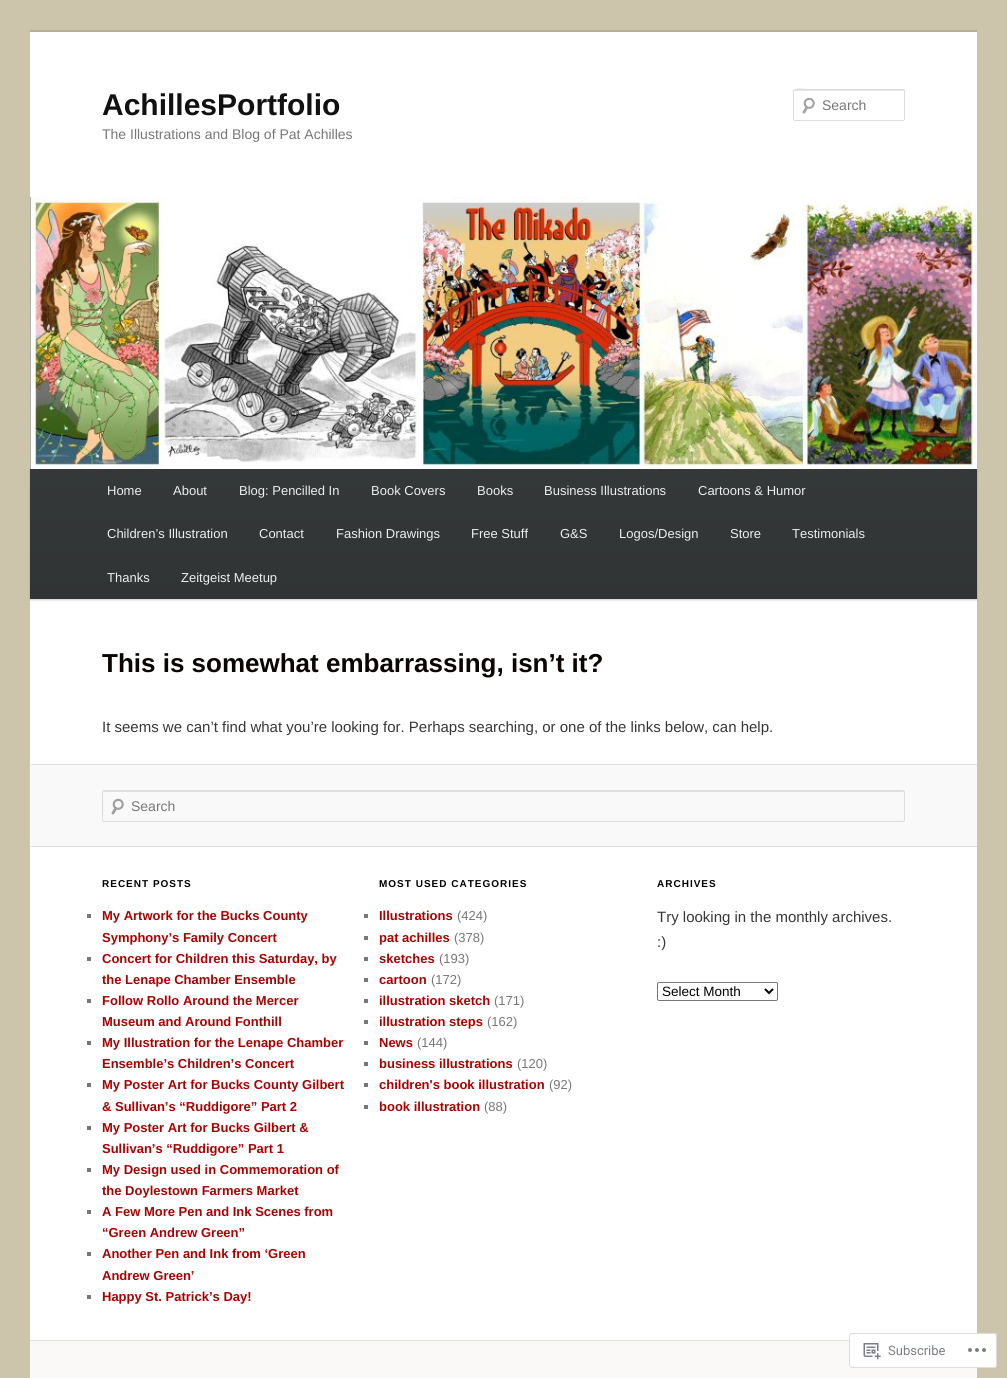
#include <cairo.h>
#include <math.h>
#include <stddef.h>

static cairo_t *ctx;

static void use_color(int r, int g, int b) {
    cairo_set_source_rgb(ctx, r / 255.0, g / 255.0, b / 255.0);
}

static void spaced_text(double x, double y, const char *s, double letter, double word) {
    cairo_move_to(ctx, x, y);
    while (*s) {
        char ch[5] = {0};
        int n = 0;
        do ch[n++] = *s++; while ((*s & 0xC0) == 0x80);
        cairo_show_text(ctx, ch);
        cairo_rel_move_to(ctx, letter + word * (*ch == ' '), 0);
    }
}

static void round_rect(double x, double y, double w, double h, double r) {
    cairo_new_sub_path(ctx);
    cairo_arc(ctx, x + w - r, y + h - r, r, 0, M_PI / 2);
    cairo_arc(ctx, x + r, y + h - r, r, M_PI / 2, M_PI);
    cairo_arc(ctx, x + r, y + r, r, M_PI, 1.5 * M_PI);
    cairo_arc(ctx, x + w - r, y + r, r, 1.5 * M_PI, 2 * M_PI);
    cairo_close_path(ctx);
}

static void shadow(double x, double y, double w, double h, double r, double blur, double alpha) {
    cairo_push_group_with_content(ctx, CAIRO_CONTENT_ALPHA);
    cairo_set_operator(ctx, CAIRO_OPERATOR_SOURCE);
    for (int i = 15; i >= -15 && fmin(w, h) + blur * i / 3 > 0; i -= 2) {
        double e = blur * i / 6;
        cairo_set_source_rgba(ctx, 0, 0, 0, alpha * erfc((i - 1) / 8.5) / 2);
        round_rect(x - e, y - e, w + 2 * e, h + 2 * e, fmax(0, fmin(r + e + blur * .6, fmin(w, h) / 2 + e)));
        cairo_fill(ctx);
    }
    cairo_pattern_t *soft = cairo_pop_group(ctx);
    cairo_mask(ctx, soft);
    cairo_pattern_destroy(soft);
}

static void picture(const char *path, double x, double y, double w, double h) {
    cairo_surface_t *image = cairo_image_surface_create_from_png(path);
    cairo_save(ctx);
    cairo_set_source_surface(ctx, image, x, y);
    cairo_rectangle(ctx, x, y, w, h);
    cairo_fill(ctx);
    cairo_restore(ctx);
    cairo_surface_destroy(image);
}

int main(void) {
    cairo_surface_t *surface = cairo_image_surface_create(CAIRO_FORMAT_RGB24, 1007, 1378);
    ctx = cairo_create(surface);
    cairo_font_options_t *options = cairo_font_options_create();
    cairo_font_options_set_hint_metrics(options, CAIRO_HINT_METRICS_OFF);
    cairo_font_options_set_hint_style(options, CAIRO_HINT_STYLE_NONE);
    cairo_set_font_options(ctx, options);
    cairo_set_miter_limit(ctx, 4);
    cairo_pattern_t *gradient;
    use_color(204, 196, 171);
    cairo_paint(ctx);
    use_color(255, 255, 255);
    cairo_rectangle(ctx, 30, 32, 947, 1308);
    cairo_fill(ctx);
    use_color(185, 174, 141);
    cairo_rectangle(ctx, 30, 30, 947, 2);
    cairo_fill(ctx);
    cairo_select_font_face(ctx, "Liberation Sans", CAIRO_FONT_SLANT_NORMAL, CAIRO_FONT_WEIGHT_BOLD);
    cairo_set_font_size(ctx, 30);
    use_color(17, 17, 17);
    cairo_move_to(ctx, 102, 115);
    cairo_show_text(ctx, "AchillesPortfolio");
    cairo_select_font_face(ctx, "Liberation Sans", CAIRO_FONT_SLANT_NORMAL, CAIRO_FONT_WEIGHT_NORMAL);
    cairo_set_font_size(ctx, 14);
    use_color(119, 119, 119);
    cairo_move_to(ctx, 102, 139);
    cairo_show_text(ctx, "The Illustrations and Blog of Pat Achilles");
    picture("img1.png", 802, 97, 13, 17);
    use_color(230, 230, 230);
    cairo_new_path(ctx);
    cairo_move_to(ctx, 795, 91);
    cairo_line_to(ctx, 904, 91);
    cairo_line_to(ctx, 904, 92);
    cairo_line_to(ctx, 903, 90);
    cairo_line_to(ctx, 813, 90);
    cairo_curve_to(ctx, 809, 90, 794, 85, 794, 92);
    cairo_curve_to(ctx, 794, 91, 794, 91, 795, 91);
    cairo_close_path(ctx);
    cairo_fill(ctx);
    round_rect(793.5, 89.5, 111, 31, 1.5);
    use_color(221, 221, 221);
    cairo_set_line_width(ctx, 1);
    cairo_stroke(ctx);
    use_color(119, 119, 119);
    cairo_move_to(ctx, 822, 110);
    cairo_show_text(ctx, "Search");
    use_color(0, 0, 0);
    shadow(30, 470, 947, 130, 0, 1, 0.2);
    picture("img2.png", 30, 197, 947, 272);
    gradient = cairo_pattern_create_linear(504, 469, 504, 599);
    cairo_pattern_add_color_stop_rgba(gradient, 0, 0.204, 0.22, 0.22, 1);
    cairo_pattern_add_color_stop_rgba(gradient, 1, 0.188, 0.204, 0.204, 1);
    cairo_set_source(ctx, gradient);
    cairo_pattern_destroy(gradient);
    cairo_rectangle(ctx, 30, 469, 947, 130);
    cairo_fill(ctx);
    cairo_set_font_size(ctx, 13);
    use_color(238, 238, 238);
    cairo_move_to(ctx, 107, 495);
    cairo_show_text(ctx, "Home");
    cairo_move_to(ctx, 173, 495);
    cairo_show_text(ctx, "About");
    cairo_move_to(ctx, 239, 495);
    cairo_show_text(ctx, "Blog: Pencilled In");
    cairo_move_to(ctx, 371, 495);
    cairo_show_text(ctx, "Book Covers");
    cairo_move_to(ctx, 477, 495);
    cairo_show_text(ctx, "Books");
    cairo_move_to(ctx, 544, 495);
    cairo_show_text(ctx, "Business Illustrations");
    cairo_move_to(ctx, 698, 495);
    cairo_show_text(ctx, "Cartoons & Humor");
    cairo_move_to(ctx, 107, 538);
    cairo_show_text(ctx, "Children’s Illustration");
    cairo_move_to(ctx, 259, 538);
    cairo_show_text(ctx, "Contact");
    cairo_move_to(ctx, 336, 538);
    cairo_show_text(ctx, "Fashion Drawings");
    cairo_move_to(ctx, 471, 538);
    cairo_show_text(ctx, "Free Stuff");
    cairo_move_to(ctx, 560, 538);
    cairo_show_text(ctx, "G&S");
    cairo_move_to(ctx, 619, 538);
    cairo_show_text(ctx, "Logos/Design");
    cairo_move_to(ctx, 730, 538);
    cairo_show_text(ctx, "Store");
    cairo_move_to(ctx, 792, 538);
    cairo_show_text(ctx, "Testimonials");
    cairo_move_to(ctx, 107, 582);
    cairo_show_text(ctx, "Thanks");
    cairo_move_to(ctx, 181, 582);
    cairo_show_text(ctx, "Zeitgeist Meetup");
    cairo_select_font_face(ctx, "Liberation Sans", CAIRO_FONT_SLANT_NORMAL, CAIRO_FONT_WEIGHT_BOLD);
    cairo_set_font_size(ctx, 26);
    use_color(10, 5, 2);
    cairo_move_to(ctx, 102, 672);
    cairo_show_text(ctx, "This is somewhat embarrassing, isn’t it?");
    cairo_select_font_face(ctx, "Liberation Sans", CAIRO_FONT_SLANT_NORMAL, CAIRO_FONT_WEIGHT_NORMAL);
    cairo_set_font_size(ctx, 15);
    use_color(55, 55, 55);
    cairo_move_to(ctx, 102, 732);
    cairo_show_text(ctx, "It seems we can’t find what you’re looking for. Perhaps searching, or one of the links below, can help.");
    use_color(249, 249, 249);
    cairo_rectangle(ctx, 31, 765, 946, 81);
    cairo_fill(ctx);
    use_color(221, 221, 221);
    cairo_rectangle(ctx, 31, 764, 946, 1);
    cairo_fill(ctx);
    cairo_rectangle(ctx, 31, 846, 946, 1);
    cairo_fill(ctx);
    picture("img3.png", 111, 798, 13, 17);
    use_color(224, 224, 224);
    cairo_new_path(ctx);
    cairo_move_to(ctx, 104, 792);
    cairo_line_to(ctx, 903, 792);
    cairo_curve_to(ctx, 904, 792, 904, 792, 904, 793);
    cairo_line_to(ctx, 904, 792);
    cairo_line_to(ctx, 903, 791);
    cairo_line_to(ctx, 104, 791);
    cairo_line_to(ctx, 103, 793);
    cairo_curve_to(ctx, 103, 792, 103, 792, 104, 792);
    cairo_close_path(ctx);
    cairo_fill(ctx);
    round_rect(102.5, 790.5, 802, 31, 1.5);
    use_color(221, 221, 221);
    cairo_stroke(ctx);
    cairo_set_font_size(ctx, 14);
    use_color(119, 119, 119);
    cairo_move_to(ctx, 131, 811);
    cairo_show_text(ctx, "Search");
    cairo_select_font_face(ctx, "Liberation Sans", CAIRO_FONT_SLANT_NORMAL, CAIRO_FONT_WEIGHT_BOLD);
    cairo_set_font_size(ctx, 10);
    use_color(0, 0, 0);
    spaced_text(102, 887, "RECENT POSTS", 1, 0);
    use_color(119, 119, 119);
    cairo_rectangle(ctx, 87, 914, 4, 4);
    cairo_fill(ctx);
    cairo_set_font_size(ctx, 13);
    use_color(166, 4, 2);
    cairo_move_to(ctx, 102, 920);
    cairo_show_text(ctx, "My Artwork for the Bucks County");
    cairo_move_to(ctx, 102, 942);
    cairo_show_text(ctx, "Symphony’s Family Concert");
    use_color(119, 119, 119);
    cairo_rectangle(ctx, 87, 957, 4, 4);
    cairo_fill(ctx);
    use_color(166, 4, 2);
    cairo_move_to(ctx, 102, 963);
    cairo_show_text(ctx, "Concert for Children this Saturday, by");
    cairo_move_to(ctx, 102, 984);
    cairo_show_text(ctx, "the Lenape Chamber Ensemble");
    use_color(119, 119, 119);
    cairo_rectangle(ctx, 87, 999, 4, 4);
    cairo_fill(ctx);
    use_color(166, 4, 2);
    cairo_move_to(ctx, 102, 1005);
    cairo_show_text(ctx, "Follow Rollo Around the Mercer");
    cairo_move_to(ctx, 102, 1026);
    cairo_show_text(ctx, "Museum and Around Fonthill");
    use_color(119, 119, 119);
    cairo_rectangle(ctx, 87, 1041, 4, 4);
    cairo_fill(ctx);
    use_color(166, 4, 2);
    cairo_move_to(ctx, 102, 1047);
    cairo_show_text(ctx, "My Illustration for the Lenape Chamber");
    cairo_move_to(ctx, 102, 1068);
    cairo_show_text(ctx, "Ensemble’s Children’s Concert");
    use_color(119, 119, 119);
    cairo_rectangle(ctx, 87, 1083, 4, 4);
    cairo_fill(ctx);
    use_color(166, 4, 2);
    cairo_move_to(ctx, 102, 1089);
    cairo_show_text(ctx, "My Poster Art for Bucks County Gilbert");
    cairo_move_to(ctx, 102, 1111);
    cairo_show_text(ctx, "& Sullivan’s “Ruddigore” Part 2");
    use_color(119, 119, 119);
    cairo_rectangle(ctx, 87, 1126, 4, 4);
    cairo_fill(ctx);
    use_color(166, 4, 2);
    cairo_move_to(ctx, 102, 1132);
    cairo_show_text(ctx, "My Poster Art for Bucks Gilbert &");
    cairo_move_to(ctx, 102, 1153);
    cairo_show_text(ctx, "Sullivan’s “Ruddigore” Part 1");
    use_color(119, 119, 119);
    cairo_rectangle(ctx, 87, 1168, 4, 4);
    cairo_fill(ctx);
    use_color(166, 4, 2);
    cairo_move_to(ctx, 102, 1174);
    cairo_show_text(ctx, "My Design used in Commemoration of");
    cairo_move_to(ctx, 102, 1195);
    cairo_show_text(ctx, "the Doylestown Farmers Market");
    use_color(119, 119, 119);
    cairo_rectangle(ctx, 87, 1210, 4, 4);
    cairo_fill(ctx);
    use_color(166, 4, 2);
    cairo_move_to(ctx, 102, 1216);
    cairo_show_text(ctx, "A Few More Pen and Ink Scenes from");
    cairo_move_to(ctx, 102, 1237);
    cairo_show_text(ctx, "“Green Andrew Green”");
    use_color(119, 119, 119);
    cairo_rectangle(ctx, 87, 1252, 4, 4);
    cairo_fill(ctx);
    use_color(166, 4, 2);
    cairo_move_to(ctx, 102, 1258);
    cairo_show_text(ctx, "Another Pen and Ink from ‘Green");
    cairo_move_to(ctx, 102, 1280);
    cairo_show_text(ctx, "Andrew Green’");
    use_color(119, 119, 119);
    cairo_rectangle(ctx, 87, 1295, 4, 4);
    cairo_fill(ctx);
    use_color(166, 4, 2);
    cairo_move_to(ctx, 102, 1301);
    cairo_show_text(ctx, "Happy St. Patrick’s Day!");
    cairo_set_font_size(ctx, 10);
    use_color(0, 0, 0);
    spaced_text(379, 887, "MOST USED CATEGORIES", 1, 0);
    use_color(119, 119, 119);
    cairo_rectangle(ctx, 364, 914, 4, 4);
    cairo_fill(ctx);
    cairo_set_font_size(ctx, 13);
    use_color(166, 4, 2);
    cairo_move_to(ctx, 379, 920);
    cairo_show_text(ctx, "Illustrations");
    cairo_select_font_face(ctx, "Liberation Sans", CAIRO_FONT_SLANT_NORMAL, CAIRO_FONT_WEIGHT_NORMAL);
    use_color(119, 119, 119);
    cairo_move_to(ctx, 457, 920);
    cairo_show_text(ctx, "(424)");
    cairo_rectangle(ctx, 364, 936, 4, 4);
    cairo_fill(ctx);
    cairo_select_font_face(ctx, "Liberation Sans", CAIRO_FONT_SLANT_NORMAL, CAIRO_FONT_WEIGHT_BOLD);
    use_color(166, 4, 2);
    cairo_move_to(ctx, 379, 942);
    cairo_show_text(ctx, "pat achilles");
    cairo_select_font_face(ctx, "Liberation Sans", CAIRO_FONT_SLANT_NORMAL, CAIRO_FONT_WEIGHT_NORMAL);
    use_color(119, 119, 119);
    cairo_move_to(ctx, 454, 942);
    cairo_show_text(ctx, "(378)");
    cairo_rectangle(ctx, 364, 957, 4, 4);
    cairo_fill(ctx);
    cairo_select_font_face(ctx, "Liberation Sans", CAIRO_FONT_SLANT_NORMAL, CAIRO_FONT_WEIGHT_BOLD);
    use_color(166, 4, 2);
    cairo_move_to(ctx, 379, 963);
    cairo_show_text(ctx, "sketches");
    cairo_select_font_face(ctx, "Liberation Sans", CAIRO_FONT_SLANT_NORMAL, CAIRO_FONT_WEIGHT_NORMAL);
    use_color(119, 119, 119);
    cairo_move_to(ctx, 439, 963);
    cairo_show_text(ctx, "(193)");
    cairo_rectangle(ctx, 364, 978, 4, 4);
    cairo_fill(ctx);
    cairo_select_font_face(ctx, "Liberation Sans", CAIRO_FONT_SLANT_NORMAL, CAIRO_FONT_WEIGHT_BOLD);
    use_color(166, 4, 2);
    cairo_move_to(ctx, 379, 984);
    cairo_show_text(ctx, "cartoon");
    cairo_select_font_face(ctx, "Liberation Sans", CAIRO_FONT_SLANT_NORMAL, CAIRO_FONT_WEIGHT_NORMAL);
    use_color(119, 119, 119);
    cairo_move_to(ctx, 431, 984);
    cairo_show_text(ctx, "(172)");
    cairo_rectangle(ctx, 364, 999, 4, 4);
    cairo_fill(ctx);
    cairo_select_font_face(ctx, "Liberation Sans", CAIRO_FONT_SLANT_NORMAL, CAIRO_FONT_WEIGHT_BOLD);
    use_color(166, 4, 2);
    cairo_move_to(ctx, 379, 1005);
    cairo_show_text(ctx, "illustration sketch");
    cairo_select_font_face(ctx, "Liberation Sans", CAIRO_FONT_SLANT_NORMAL, CAIRO_FONT_WEIGHT_NORMAL);
    use_color(119, 119, 119);
    cairo_move_to(ctx, 494, 1005);
    cairo_show_text(ctx, "(171)");
    cairo_rectangle(ctx, 364, 1020, 4, 4);
    cairo_fill(ctx);
    cairo_select_font_face(ctx, "Liberation Sans", CAIRO_FONT_SLANT_NORMAL, CAIRO_FONT_WEIGHT_BOLD);
    use_color(166, 4, 2);
    cairo_move_to(ctx, 379, 1026);
    cairo_show_text(ctx, "illustration steps");
    cairo_select_font_face(ctx, "Liberation Sans", CAIRO_FONT_SLANT_NORMAL, CAIRO_FONT_WEIGHT_NORMAL);
    use_color(119, 119, 119);
    cairo_move_to(ctx, 487, 1026);
    cairo_show_text(ctx, "(162)");
    cairo_rectangle(ctx, 364, 1041, 4, 4);
    cairo_fill(ctx);
    cairo_select_font_face(ctx, "Liberation Sans", CAIRO_FONT_SLANT_NORMAL, CAIRO_FONT_WEIGHT_BOLD);
    use_color(166, 4, 2);
    cairo_move_to(ctx, 379, 1047);
    cairo_show_text(ctx, "News");
    cairo_select_font_face(ctx, "Liberation Sans", CAIRO_FONT_SLANT_NORMAL, CAIRO_FONT_WEIGHT_NORMAL);
    use_color(119, 119, 119);
    cairo_move_to(ctx, 417, 1047);
    cairo_show_text(ctx, "(144)");
    cairo_rectangle(ctx, 364, 1062, 4, 4);
    cairo_fill(ctx);
    cairo_select_font_face(ctx, "Liberation Sans", CAIRO_FONT_SLANT_NORMAL, CAIRO_FONT_WEIGHT_BOLD);
    use_color(166, 4, 2);
    cairo_move_to(ctx, 379, 1068);
    cairo_show_text(ctx, "business illustrations");
    cairo_select_font_face(ctx, "Liberation Sans", CAIRO_FONT_SLANT_NORMAL, CAIRO_FONT_WEIGHT_NORMAL);
    use_color(119, 119, 119);
    cairo_move_to(ctx, 517, 1068);
    cairo_show_text(ctx, "(120)");
    cairo_rectangle(ctx, 364, 1083, 4, 4);
    cairo_fill(ctx);
    cairo_select_font_face(ctx, "Liberation Sans", CAIRO_FONT_SLANT_NORMAL, CAIRO_FONT_WEIGHT_BOLD);
    use_color(166, 4, 2);
    cairo_move_to(ctx, 379, 1089);
    cairo_show_text(ctx, "children's book illustration");
    cairo_select_font_face(ctx, "Liberation Sans", CAIRO_FONT_SLANT_NORMAL, CAIRO_FONT_WEIGHT_NORMAL);
    use_color(119, 119, 119);
    cairo_move_to(ctx, 549, 1089);
    cairo_show_text(ctx, "(92)");
    cairo_rectangle(ctx, 364, 1105, 4, 4);
    cairo_fill(ctx);
    cairo_select_font_face(ctx, "Liberation Sans", CAIRO_FONT_SLANT_NORMAL, CAIRO_FONT_WEIGHT_BOLD);
    use_color(166, 4, 2);
    cairo_move_to(ctx, 379, 1111);
    cairo_show_text(ctx, "book illustration");
    cairo_select_font_face(ctx, "Liberation Sans", CAIRO_FONT_SLANT_NORMAL, CAIRO_FONT_WEIGHT_NORMAL);
    use_color(119, 119, 119);
    cairo_move_to(ctx, 484, 1111);
    cairo_show_text(ctx, "(88)");
    cairo_select_font_face(ctx, "Liberation Sans", CAIRO_FONT_SLANT_NORMAL, CAIRO_FONT_WEIGHT_BOLD);
    cairo_set_font_size(ctx, 10);
    use_color(0, 0, 0);
    spaced_text(657, 887, "ARCHIVES", 1, 0);
    cairo_select_font_face(ctx, "Liberation Sans", CAIRO_FONT_SLANT_NORMAL, CAIRO_FONT_WEIGHT_NORMAL);
    cairo_set_font_size(ctx, 15);
    use_color(55, 55, 55);
    cairo_move_to(ctx, 657, 922);
    cairo_show_text(ctx, "Try looking in the monthly archives.");
    cairo_move_to(ctx, 657, 947);
    cairo_show_text(ctx, ":)");
    round_rect(657.5, 982.5, 120, 18, 1.5);
    use_color(118, 118, 118);
    cairo_stroke(ctx);
    cairo_new_path(ctx);
    cairo_move_to(ctx, 765, 989);
    cairo_line_to(ctx, 769, 993);
    cairo_line_to(ctx, 773, 989);
    use_color(0, 0, 0);
    cairo_set_line_width(ctx, 2);
    cairo_stroke(ctx);
    cairo_set_font_size(ctx, 13.5);
    cairo_move_to(ctx, 662, 996);
    cairo_show_text(ctx, "Select Month");
    use_color(250, 249, 247);
    cairo_rectangle(ctx, 30, 1341, 947, 37);
    cairo_fill(ctx);
    use_color(225, 224, 222);
    cairo_rectangle(ctx, 30, 1340, 947, 1);
    cairo_fill(ctx);
    cairo_set_source_rgba(ctx, 1, 1, 1, 0.98);
    round_rect(849, 1333, 148, 35, 3);
    cairo_fill(ctx);
    round_rect(849.5, 1333.5, 147, 34, 2.5);
    cairo_set_source_rgba(ctx, 0.863, 0.863, 0.871, 0.98);
    cairo_set_line_width(ctx, 1);
    cairo_stroke(ctx);
    picture("img4.png", 863, 1343, 18, 17);
    cairo_select_font_face(ctx, "Roboto", CAIRO_FONT_SLANT_NORMAL, CAIRO_FONT_WEIGHT_NORMAL);
    cairo_set_font_size(ctx, 13);
    use_color(123, 127, 132);
    cairo_move_to(ctx, 888, 1355);
    cairo_show_text(ctx, "Subscribe");
    picture("img5.png", 968, 1348, 18, 4);
    cairo_surface_write_to_png(surface, "result.png");
    cairo_font_options_destroy(options);
    cairo_destroy(ctx);
    cairo_surface_destroy(surface);
    return 0;
}
